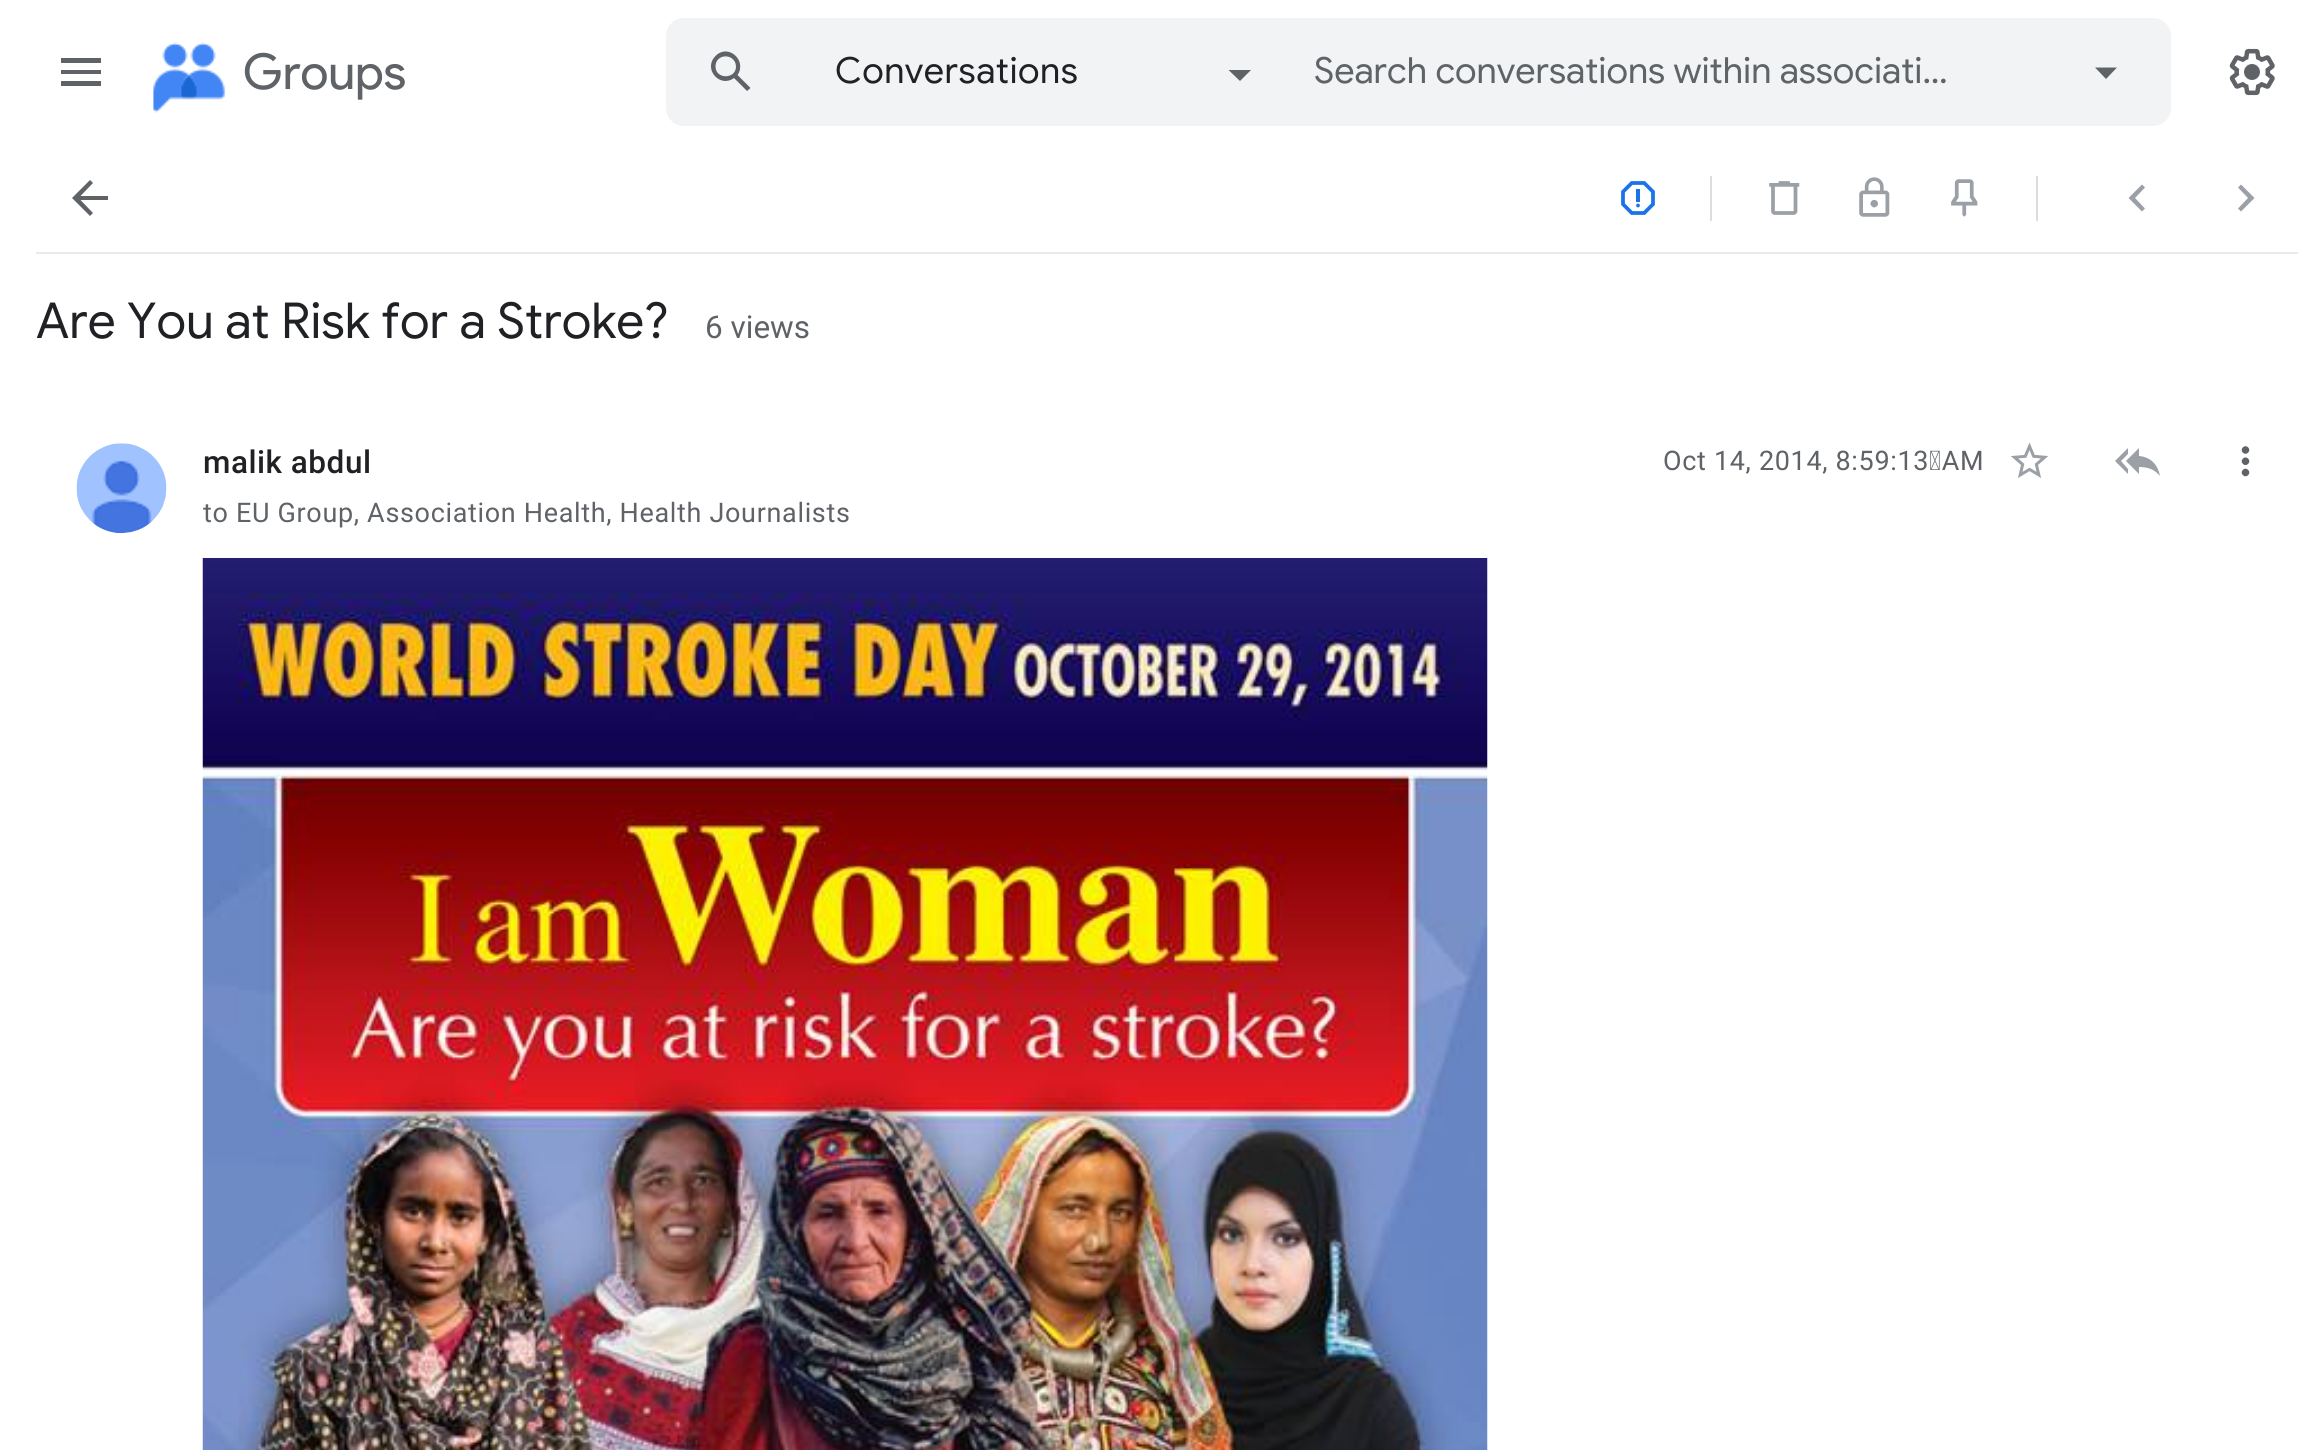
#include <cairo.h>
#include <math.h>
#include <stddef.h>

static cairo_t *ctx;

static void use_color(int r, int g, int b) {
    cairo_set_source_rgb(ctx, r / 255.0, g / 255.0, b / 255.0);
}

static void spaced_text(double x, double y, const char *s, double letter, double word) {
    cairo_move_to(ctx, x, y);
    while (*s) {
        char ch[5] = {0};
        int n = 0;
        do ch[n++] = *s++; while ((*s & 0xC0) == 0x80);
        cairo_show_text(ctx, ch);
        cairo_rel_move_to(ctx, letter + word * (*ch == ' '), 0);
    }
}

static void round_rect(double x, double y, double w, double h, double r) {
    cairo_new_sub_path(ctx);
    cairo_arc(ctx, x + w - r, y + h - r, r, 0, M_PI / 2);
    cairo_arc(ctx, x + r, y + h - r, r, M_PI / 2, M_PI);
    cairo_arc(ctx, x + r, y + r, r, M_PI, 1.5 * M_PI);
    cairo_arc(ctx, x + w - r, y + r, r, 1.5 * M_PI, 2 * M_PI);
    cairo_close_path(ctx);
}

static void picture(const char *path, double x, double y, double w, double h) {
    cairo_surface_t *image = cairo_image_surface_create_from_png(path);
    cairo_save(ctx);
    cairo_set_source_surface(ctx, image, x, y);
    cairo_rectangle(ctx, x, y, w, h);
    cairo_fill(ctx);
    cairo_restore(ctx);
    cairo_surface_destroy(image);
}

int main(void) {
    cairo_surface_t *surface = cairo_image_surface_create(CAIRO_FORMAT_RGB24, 2298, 1450);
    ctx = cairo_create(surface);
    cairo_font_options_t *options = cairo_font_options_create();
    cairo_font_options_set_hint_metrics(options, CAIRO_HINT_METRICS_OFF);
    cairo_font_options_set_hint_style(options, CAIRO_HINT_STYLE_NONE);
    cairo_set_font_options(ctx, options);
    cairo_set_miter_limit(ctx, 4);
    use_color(255, 255, 255);
    cairo_paint(ctx);
    use_color(95, 99, 104);
    cairo_new_path(ctx);
    cairo_move_to(ctx, 61, 86);
    cairo_line_to(ctx, 101, 86);
    cairo_line_to(ctx, 101, 81);
    cairo_line_to(ctx, 61, 81);
    cairo_close_path(ctx);
    cairo_move_to(ctx, 61, 74);
    cairo_line_to(ctx, 101, 74);
    cairo_line_to(ctx, 101, 70);
    cairo_line_to(ctx, 61, 70);
    cairo_close_path(ctx);
    cairo_move_to(ctx, 61, 58);
    cairo_line_to(ctx, 61, 63);
    cairo_line_to(ctx, 101, 63);
    cairo_line_to(ctx, 101, 58);
    cairo_close_path(ctx);
    cairo_fill(ctx);
    picture("img1.png", 153, 42, 73, 71);
    cairo_select_font_face(ctx, "Product Sans", CAIRO_FONT_SLANT_NORMAL, CAIRO_FONT_WEIGHT_NORMAL);
    cairo_set_font_size(ctx, 49.5);
    cairo_move_to(ctx, 243, 89);
    cairo_show_text(ctx, "Groups");
    use_color(241, 243, 244);
    round_rect(666, 18, 1505, 108, 18);
    cairo_fill(ctx);
    use_color(95, 99, 104);
    cairo_new_path(ctx);
    cairo_move_to(ctx, 750.5, 88);
    cairo_line_to(ctx, 737.5, 75);
    cairo_curve_to(ctx, 747.5, 60.5, 728, 43, 715.5, 56);
    cairo_curve_to(ctx, 702.5, 69, 720, 88.5, 734, 78);
    cairo_line_to(ctx, 747, 91);
    cairo_close_path(ctx);
    cairo_move_to(ctx, 715.5, 66.5);
    cairo_curve_to(ctx, 715.5, 53, 735.5, 53, 736, 66.5);
    cairo_curve_to(ctx, 736, 79.5, 715.5, 79.5, 715.5, 66.5);
    cairo_close_path(ctx);
    cairo_fill(ctx);
    cairo_select_font_face(ctx, "Google Sans", CAIRO_FONT_SLANT_NORMAL, CAIRO_FONT_WEIGHT_NORMAL);
    cairo_set_font_size(ctx, 36);
    use_color(32, 33, 36);
    spaced_text(835, 83, "Conversations", 0.5, 0);
    use_color(95, 99, 104);
    cairo_new_path(ctx);
    cairo_move_to(ctx, 1228.5, 70);
    cairo_line_to(ctx, 1251, 70);
    cairo_line_to(ctx, 1240, 81);
    cairo_close_path(ctx);
    cairo_fill(ctx);
    cairo_move_to(ctx, 1314, 83);
    cairo_show_text(ctx, "Search conversations within associati…");
    cairo_new_path(ctx);
    cairo_move_to(ctx, 2095, 67.5);
    cairo_line_to(ctx, 2106, 79);
    cairo_line_to(ctx, 2117, 67.5);
    cairo_close_path(ctx);
    cairo_fill(ctx);
    picture("img2.png", 2229, 48, 46, 48);
    use_color(232, 234, 237);
    cairo_rectangle(ctx, 36, 252, 2262, 2);
    cairo_fill(ctx);
    use_color(95, 99, 104);
    cairo_new_path(ctx);
    cairo_move_to(ctx, 108, 196);
    cairo_line_to(ctx, 108, 200);
    cairo_line_to(ctx, 80.5, 200);
    cairo_line_to(ctx, 93, 213);
    cairo_line_to(ctx, 90, 216);
    cairo_line_to(ctx, 72, 198);
    cairo_line_to(ctx, 90, 180);
    cairo_line_to(ctx, 93, 183);
    cairo_line_to(ctx, 80.5, 196);
    cairo_close_path(ctx);
    cairo_fill(ctx);
    picture("img3.png", 1621, 181, 34, 34);
    use_color(221, 221, 221);
    cairo_rectangle(ctx, 1710, 176, 2, 45);
    cairo_fill(ctx);
    picture("img4.png", 1769, 181, 31, 34);
    picture("img5.png", 1859, 177, 31, 40);
    picture("img6.png", 1951, 179, 27, 38);
    cairo_rectangle(ctx, 2036, 176, 2, 45);
    cairo_fill(ctx);
    use_color(154, 160, 166);
    cairo_new_path(ctx);
    cairo_move_to(ctx, 2145, 187.5);
    cairo_line_to(ctx, 2135, 198);
    cairo_line_to(ctx, 2145, 208.5);
    cairo_line_to(ctx, 2142, 211.5);
    cairo_line_to(ctx, 2128.5, 198);
    cairo_line_to(ctx, 2142, 184.5);
    cairo_close_path(ctx);
    cairo_fill(ctx);
    cairo_new_path(ctx);
    cairo_move_to(ctx, 2241, 184.5);
    cairo_line_to(ctx, 2254.5, 198);
    cairo_line_to(ctx, 2241, 211.5);
    cairo_line_to(ctx, 2238, 208.5);
    cairo_line_to(ctx, 2248, 198);
    cairo_line_to(ctx, 2238, 187.5);
    cairo_close_path(ctx);
    cairo_fill(ctx);
    cairo_set_font_size(ctx, 49.5);
    use_color(32, 33, 36);
    cairo_move_to(ctx, 36, 338);
    cairo_show_text(ctx, "Are You at Risk for a Stroke?");
    cairo_select_font_face(ctx, "Roboto", CAIRO_FONT_SLANT_NORMAL, CAIRO_FONT_WEIGHT_NORMAL);
    cairo_set_font_size(ctx, 31.5);
    use_color(95, 99, 104);
    cairo_move_to(ctx, 705, 338);
    cairo_show_text(ctx, "6 views");
    picture("img7.png", 76, 443, 91, 91);
    cairo_select_font_face(ctx, "Roboto Medium", CAIRO_FONT_SLANT_NORMAL, CAIRO_FONT_WEIGHT_NORMAL);
    use_color(32, 33, 36);
    spaced_text(203, 473, "malik abdul", 0.5, 0);
    cairo_select_font_face(ctx, "Roboto", CAIRO_FONT_SLANT_NORMAL, CAIRO_FONT_WEIGHT_NORMAL);
    cairo_set_font_size(ctx, 27);
    use_color(95, 99, 104);
    spaced_text(1663, 470, "Oct 14, 2014, 8:59:13 AM", 0.67, 0);
    picture("img8.png", 2011, 442, 37, 36);
    use_color(154, 160, 166);
    cairo_new_path(ctx);
    cairo_move_to(ctx, 2139, 456);
    cairo_curve_to(ctx, 2151, 457, 2158, 465, 2160, 476);
    cairo_curve_to(ctx, 2155, 470, 2149, 467, 2139, 467);
    cairo_line_to(ctx, 2139, 474);
    cairo_line_to(ctx, 2126, 461);
    cairo_line_to(ctx, 2139, 448);
    cairo_close_path(ctx);
    cairo_move_to(ctx, 2128, 454);
    cairo_line_to(ctx, 2121, 461);
    cairo_line_to(ctx, 2128, 469);
    cairo_line_to(ctx, 2128, 474);
    cairo_line_to(ctx, 2115, 461);
    cairo_line_to(ctx, 2128, 448);
    cairo_close_path(ctx);
    cairo_fill(ctx);
    picture("img9.png", 2241, 446, 9, 31);
    use_color(95, 99, 104);
    spaced_text(203, 522, "to EU Group, Association Health, Health Journalists", 0.67, 0);
    picture("img10.png", 202, 558, 1286, 892);
    cairo_surface_write_to_png(surface, "result.png");
    cairo_font_options_destroy(options);
    cairo_destroy(ctx);
    cairo_surface_destroy(surface);
    return 0;
}
